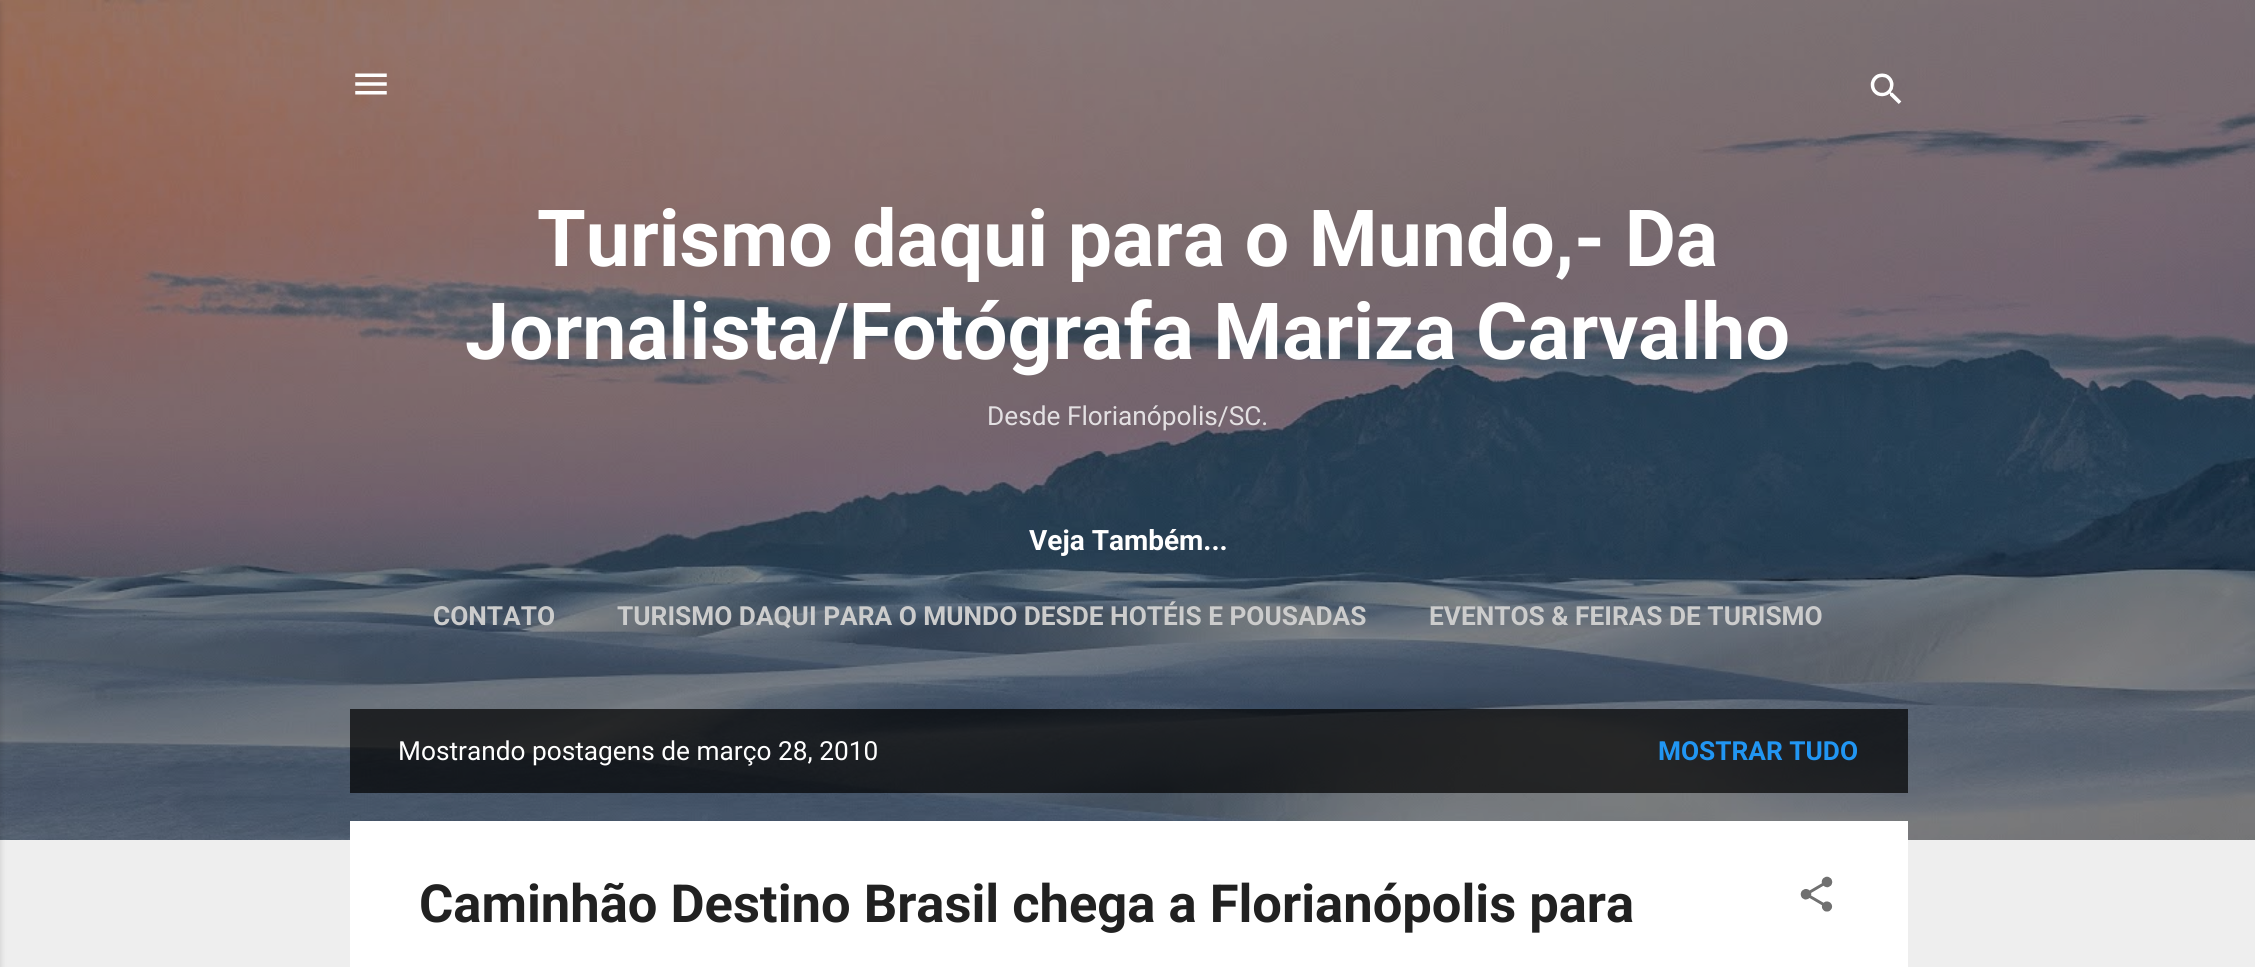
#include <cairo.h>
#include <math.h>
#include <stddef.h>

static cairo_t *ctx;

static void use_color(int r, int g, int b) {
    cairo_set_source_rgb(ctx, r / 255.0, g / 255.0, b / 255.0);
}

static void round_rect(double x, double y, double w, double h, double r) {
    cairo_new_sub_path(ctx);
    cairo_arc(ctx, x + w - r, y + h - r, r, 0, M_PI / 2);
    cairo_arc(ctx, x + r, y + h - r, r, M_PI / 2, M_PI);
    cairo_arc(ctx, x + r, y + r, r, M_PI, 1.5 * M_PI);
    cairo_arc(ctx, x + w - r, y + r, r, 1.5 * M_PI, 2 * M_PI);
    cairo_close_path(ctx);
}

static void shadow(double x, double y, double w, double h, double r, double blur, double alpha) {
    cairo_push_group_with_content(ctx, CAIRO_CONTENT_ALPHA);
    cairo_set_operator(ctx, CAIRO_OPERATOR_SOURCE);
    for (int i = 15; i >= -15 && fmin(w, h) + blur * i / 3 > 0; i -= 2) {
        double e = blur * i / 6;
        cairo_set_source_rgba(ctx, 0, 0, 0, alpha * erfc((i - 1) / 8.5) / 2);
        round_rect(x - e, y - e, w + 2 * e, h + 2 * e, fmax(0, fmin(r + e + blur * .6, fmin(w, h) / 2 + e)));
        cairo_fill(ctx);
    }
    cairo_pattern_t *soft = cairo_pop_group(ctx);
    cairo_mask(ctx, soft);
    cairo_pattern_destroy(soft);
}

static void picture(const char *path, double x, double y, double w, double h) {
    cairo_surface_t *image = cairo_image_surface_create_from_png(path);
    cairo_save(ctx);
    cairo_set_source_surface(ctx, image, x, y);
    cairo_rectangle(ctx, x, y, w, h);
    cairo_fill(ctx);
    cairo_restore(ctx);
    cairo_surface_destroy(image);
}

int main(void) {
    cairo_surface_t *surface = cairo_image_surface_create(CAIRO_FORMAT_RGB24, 2255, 967);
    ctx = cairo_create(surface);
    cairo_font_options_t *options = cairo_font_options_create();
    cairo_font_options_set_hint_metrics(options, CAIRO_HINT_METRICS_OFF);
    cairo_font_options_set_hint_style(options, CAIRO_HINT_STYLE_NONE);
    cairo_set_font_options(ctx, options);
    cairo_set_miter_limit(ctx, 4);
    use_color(238, 238, 238);
    cairo_paint(ctx);
    picture("img1.png", 0, 0, 2255, 840);
    use_color(0, 0, 0);
    shadow(-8, 2, 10, 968, 0, 2.5, 0.1);
    picture("img2.png", 355, 73, 32, 22);
    picture("img3.png", 1870, 73, 32, 31);
    cairo_select_font_face(ctx, "Roboto", CAIRO_FONT_SLANT_NORMAL, CAIRO_FONT_WEIGHT_BOLD);
    cairo_set_font_size(ctx, 78.75);
    use_color(255, 255, 255);
    cairo_move_to(ctx, 537, 266);
    cairo_show_text(ctx, "Turismo daqui para o Mundo,- Da");
    cairo_move_to(ctx, 465, 359);
    cairo_show_text(ctx, "Jornalista/Fotógrafa Mariza Carvalho");
    cairo_select_font_face(ctx, "Roboto", CAIRO_FONT_SLANT_NORMAL, CAIRO_FONT_WEIGHT_NORMAL);
    cairo_set_font_size(ctx, 26.25);
    use_color(227, 224, 226);
    cairo_move_to(ctx, 987, 425);
    cairo_show_text(ctx, "Desde Florianópolis/SC.");
    cairo_select_font_face(ctx, "Roboto", CAIRO_FONT_SLANT_NORMAL, CAIRO_FONT_WEIGHT_BOLD);
    cairo_set_font_size(ctx, 28);
    use_color(255, 255, 255);
    cairo_move_to(ctx, 1029, 550);
    cairo_show_text(ctx, "Veja Também...");
    cairo_set_font_size(ctx, 26.25);
    use_color(204, 204, 204);
    cairo_move_to(ctx, 433, 625);
    cairo_show_text(ctx, "CONTATO");
    cairo_move_to(ctx, 617, 625);
    cairo_show_text(ctx, "TURISMO DAQUI PARA O MUNDO DESDE HOTÉIS E POUSADAS");
    cairo_move_to(ctx, 1429, 625);
    cairo_show_text(ctx, "EVENTOS & FEIRAS DE TURISMO");
    cairo_set_source_rgba(ctx, 0, 0, 0, 0.7);
    cairo_rectangle(ctx, 350, 709, 1558, 84);
    cairo_fill(ctx);
    cairo_select_font_face(ctx, "Roboto", CAIRO_FONT_SLANT_NORMAL, CAIRO_FONT_WEIGHT_NORMAL);
    use_color(255, 255, 255);
    cairo_move_to(ctx, 398, 760);
    cairo_show_text(ctx, "Mostrando postagens de março 28, 2010");
    cairo_select_font_face(ctx, "Roboto", CAIRO_FONT_SLANT_NORMAL, CAIRO_FONT_WEIGHT_BOLD);
    use_color(33, 150, 243);
    cairo_move_to(ctx, 1658, 760);
    cairo_show_text(ctx, "MOSTRAR TUDO");
    use_color(255, 255, 255);
    cairo_rectangle(ctx, 350, 821, 1558, 146);
    cairo_fill(ctx);
    cairo_set_font_size(ctx, 52.5);
    use_color(33, 33, 33);
    cairo_move_to(ctx, 419, 922);
    cairo_show_text(ctx, "Caminhão Destino Brasil chega a Florianópolis para");
    picture("img4.png", 1800, 876, 33, 36);
    cairo_surface_write_to_png(surface, "result.png");
    cairo_font_options_destroy(options);
    cairo_destroy(ctx);
    cairo_surface_destroy(surface);
    return 0;
}
